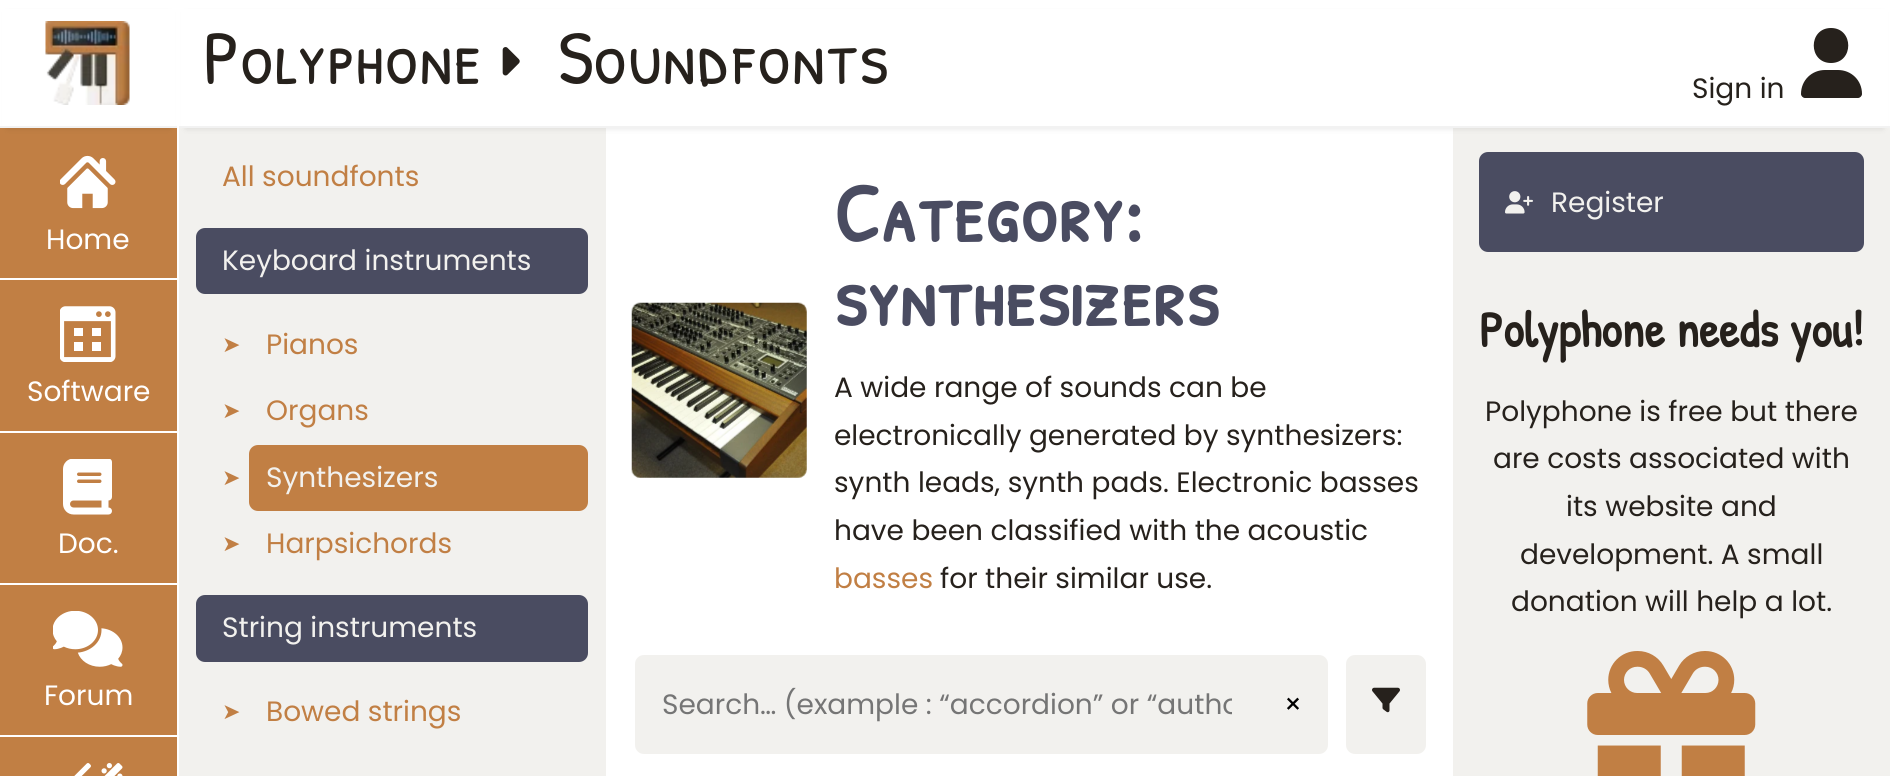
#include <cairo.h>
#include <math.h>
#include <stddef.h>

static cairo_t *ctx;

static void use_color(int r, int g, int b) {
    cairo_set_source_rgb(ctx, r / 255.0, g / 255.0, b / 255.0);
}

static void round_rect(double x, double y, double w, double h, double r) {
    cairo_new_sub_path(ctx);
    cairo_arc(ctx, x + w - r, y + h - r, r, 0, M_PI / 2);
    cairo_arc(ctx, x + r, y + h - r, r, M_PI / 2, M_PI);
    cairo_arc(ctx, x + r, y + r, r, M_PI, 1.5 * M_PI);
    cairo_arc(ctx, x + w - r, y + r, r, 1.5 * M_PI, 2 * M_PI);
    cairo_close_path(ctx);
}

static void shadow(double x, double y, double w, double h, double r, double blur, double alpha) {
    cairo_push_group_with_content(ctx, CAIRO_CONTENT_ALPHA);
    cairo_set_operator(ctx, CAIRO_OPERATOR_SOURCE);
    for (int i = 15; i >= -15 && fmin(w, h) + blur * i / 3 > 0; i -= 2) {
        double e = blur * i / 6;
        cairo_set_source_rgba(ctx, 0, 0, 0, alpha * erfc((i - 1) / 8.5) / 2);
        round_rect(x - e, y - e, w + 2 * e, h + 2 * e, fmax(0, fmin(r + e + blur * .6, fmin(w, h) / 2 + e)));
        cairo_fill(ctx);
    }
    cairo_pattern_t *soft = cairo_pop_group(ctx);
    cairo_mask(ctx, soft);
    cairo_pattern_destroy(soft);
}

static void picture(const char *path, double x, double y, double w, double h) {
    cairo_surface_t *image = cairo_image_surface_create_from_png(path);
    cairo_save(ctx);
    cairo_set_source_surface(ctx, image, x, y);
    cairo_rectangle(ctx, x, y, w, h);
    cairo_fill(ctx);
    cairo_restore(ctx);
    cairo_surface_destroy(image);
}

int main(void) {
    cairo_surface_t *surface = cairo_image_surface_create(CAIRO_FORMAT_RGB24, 1890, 776);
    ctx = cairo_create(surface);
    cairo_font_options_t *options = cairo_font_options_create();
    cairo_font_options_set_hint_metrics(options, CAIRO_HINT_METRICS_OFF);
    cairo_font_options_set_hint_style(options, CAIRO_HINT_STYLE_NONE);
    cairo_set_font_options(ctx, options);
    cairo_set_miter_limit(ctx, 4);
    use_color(255, 255, 255);
    cairo_paint(ctx);
    use_color(193, 127, 68);
    cairo_rectangle(ctx, 0, 128, 177, 648);
    cairo_fill(ctx);
    use_color(242, 241, 238);
    cairo_rectangle(ctx, 179, 128, 427, 648);
    cairo_fill(ctx);
    use_color(0, 0, 0);
    shadow(7, 14, 163, 114, 0, 3.5, 0.12);
    use_color(255, 255, 255);
    cairo_rectangle(ctx, 2, 9, 173, 117);
    cairo_fill(ctx);
    use_color(242, 242, 242);
    cairo_rectangle(ctx, 0, 126, 177, 2);
    cairo_fill(ctx);
    picture("img1.png", 45, 21, 85, 84);
    use_color(255, 255, 255);
    cairo_rectangle(ctx, 0, 278, 177, 2);
    cairo_fill(ctx);
    picture("img2.png", 60, 155, 56, 54);
    cairo_select_font_face(ctx, "Poppins", CAIRO_FONT_SLANT_NORMAL, CAIRO_FONT_WEIGHT_NORMAL);
    cairo_set_font_size(ctx, 28);
    cairo_move_to(ctx, 46, 249);
    cairo_show_text(ctx, "Home");
    cairo_rectangle(ctx, 0, 431, 177, 2);
    cairo_fill(ctx);
    picture("img3.png", 60, 306, 56, 56);
    cairo_move_to(ctx, 27, 401);
    cairo_show_text(ctx, "Software");
    cairo_rectangle(ctx, 0, 583, 177, 2);
    cairo_fill(ctx);
    picture("img4.png", 63, 459, 49, 56);
    cairo_move_to(ctx, 58, 553);
    cairo_show_text(ctx, "Doc.");
    cairo_rectangle(ctx, 0, 735, 177, 2);
    cairo_fill(ctx);
    picture("img5.png", 53, 611, 70, 56);
    cairo_move_to(ctx, 44, 705);
    cairo_show_text(ctx, "Forum");
    picture("img6.png", 74, 763, 49, 13);
    use_color(242, 241, 238);
    cairo_rectangle(ctx, 1453, 128, 437, 648);
    cairo_fill(ctx);
    use_color(0, 0, 0);
    shadow(186, 14, 1697, 114, 0, 3.5, 0.12);
    use_color(255, 255, 255);
    cairo_rectangle(ctx, 181, 9, 1707, 117);
    cairo_fill(ctx);
    use_color(242, 242, 242);
    cairo_rectangle(ctx, 179, 126, 1711, 2);
    cairo_fill(ctx);
    cairo_select_font_face(ctx, "Patrick Hand SC", CAIRO_FONT_SLANT_NORMAL, CAIRO_FONT_WEIGHT_NORMAL);
    cairo_set_font_size(ctx, 77);
    use_color(38, 33, 28);
    cairo_move_to(ctx, 203, 84);
    cairo_show_text(ctx, "Polyphone");
    picture("img7.png", 502, 47, 18, 29);
    cairo_move_to(ctx, 558, 84);
    cairo_show_text(ctx, "Soundfonts");
    cairo_select_font_face(ctx, "Poppins", CAIRO_FONT_SLANT_NORMAL, CAIRO_FONT_WEIGHT_NORMAL);
    cairo_set_font_size(ctx, 28);
    cairo_move_to(ctx, 1692, 98);
    cairo_show_text(ctx, "Sign in");
    cairo_new_path(ctx);
    cairo_move_to(ctx, 1831, 63);
    cairo_curve_to(ctx, 1854, 63, 1854, 28, 1831, 28);
    cairo_curve_to(ctx, 1808, 28, 1808, 63, 1831, 63);
    cairo_close_path(ctx);
    cairo_move_to(ctx, 1825, 70);
    cairo_curve_to(ctx, 1812, 70, 1801, 80, 1801, 94);
    cairo_curve_to(ctx, 1801, 96, 1803, 98, 1805, 98);
    cairo_line_to(ctx, 1858, 98);
    cairo_curve_to(ctx, 1860, 98, 1862, 96, 1862, 94);
    cairo_curve_to(ctx, 1862, 80, 1851, 70, 1838, 70);
    cairo_close_path(ctx);
    cairo_fill(ctx);
    use_color(193, 127, 68);
    cairo_move_to(ctx, 222, 186);
    cairo_show_text(ctx, "All soundfonts");
    use_color(74, 76, 97);
    round_rect(196, 228, 392, 66, 9);
    cairo_fill(ctx);
    use_color(242, 241, 238);
    cairo_move_to(ctx, 222, 270);
    cairo_show_text(ctx, "Keyboard instruments");
    cairo_select_font_face(ctx, "DejaVu Sans", CAIRO_FONT_SLANT_NORMAL, CAIRO_FONT_WEIGHT_NORMAL);
    cairo_set_font_size(ctx, 22);
    use_color(193, 127, 68);
    cairo_move_to(ctx, 222, 352);
    cairo_show_text(ctx, "➤");
    cairo_select_font_face(ctx, "Poppins", CAIRO_FONT_SLANT_NORMAL, CAIRO_FONT_WEIGHT_NORMAL);
    cairo_set_font_size(ctx, 28);
    cairo_move_to(ctx, 266, 354);
    cairo_show_text(ctx, "Pianos");
    cairo_select_font_face(ctx, "DejaVu Sans", CAIRO_FONT_SLANT_NORMAL, CAIRO_FONT_WEIGHT_NORMAL);
    cairo_set_font_size(ctx, 22);
    cairo_move_to(ctx, 222, 418);
    cairo_show_text(ctx, "➤");
    cairo_select_font_face(ctx, "Poppins", CAIRO_FONT_SLANT_NORMAL, CAIRO_FONT_WEIGHT_NORMAL);
    cairo_set_font_size(ctx, 28);
    cairo_move_to(ctx, 266, 420);
    cairo_show_text(ctx, "Organs");
    cairo_select_font_face(ctx, "DejaVu Sans", CAIRO_FONT_SLANT_NORMAL, CAIRO_FONT_WEIGHT_NORMAL);
    cairo_set_font_size(ctx, 22);
    cairo_move_to(ctx, 222, 485);
    cairo_show_text(ctx, "➤");
    round_rect(249, 445, 339, 66, 9);
    cairo_fill(ctx);
    cairo_select_font_face(ctx, "Poppins", CAIRO_FONT_SLANT_NORMAL, CAIRO_FONT_WEIGHT_NORMAL);
    cairo_set_font_size(ctx, 28);
    use_color(242, 241, 238);
    cairo_move_to(ctx, 266, 487);
    cairo_show_text(ctx, "Synthesizers");
    cairo_select_font_face(ctx, "DejaVu Sans", CAIRO_FONT_SLANT_NORMAL, CAIRO_FONT_WEIGHT_NORMAL);
    cairo_set_font_size(ctx, 22);
    use_color(193, 127, 68);
    cairo_move_to(ctx, 222, 551);
    cairo_show_text(ctx, "➤");
    cairo_select_font_face(ctx, "Poppins", CAIRO_FONT_SLANT_NORMAL, CAIRO_FONT_WEIGHT_NORMAL);
    cairo_set_font_size(ctx, 28);
    cairo_move_to(ctx, 266, 553);
    cairo_show_text(ctx, "Harpsichords");
    use_color(74, 76, 97);
    round_rect(196, 595, 392, 67, 9);
    cairo_fill(ctx);
    use_color(242, 241, 238);
    cairo_move_to(ctx, 222, 637);
    cairo_show_text(ctx, "String instruments");
    cairo_select_font_face(ctx, "DejaVu Sans", CAIRO_FONT_SLANT_NORMAL, CAIRO_FONT_WEIGHT_NORMAL);
    cairo_set_font_size(ctx, 22);
    use_color(193, 127, 68);
    cairo_move_to(ctx, 222, 719);
    cairo_show_text(ctx, "➤");
    cairo_select_font_face(ctx, "Poppins", CAIRO_FONT_SLANT_NORMAL, CAIRO_FONT_WEIGHT_NORMAL);
    cairo_set_font_size(ctx, 28);
    cairo_move_to(ctx, 266, 721);
    cairo_show_text(ctx, "Bowed strings");
    picture("img8.png", 631, 302, 176, 176);
    cairo_select_font_face(ctx, "Patrick Hand SC", CAIRO_FONT_SLANT_NORMAL, CAIRO_FONT_WEIGHT_BOLD);
    cairo_set_font_size(ctx, 84);
    use_color(74, 76, 97);
    cairo_move_to(ctx, 834, 242);
    cairo_show_text(ctx, "Category:");
    cairo_move_to(ctx, 834, 326);
    cairo_show_text(ctx, "synthesizers");
    cairo_select_font_face(ctx, "Poppins", CAIRO_FONT_SLANT_NORMAL, CAIRO_FONT_WEIGHT_NORMAL);
    cairo_set_font_size(ctx, 28);
    use_color(38, 33, 28);
    cairo_move_to(ctx, 834, 397);
    cairo_show_text(ctx, "A wide range of sounds can be");
    cairo_move_to(ctx, 834, 445);
    cairo_show_text(ctx, "electronically generated by synthesizers:");
    cairo_move_to(ctx, 834, 492);
    cairo_show_text(ctx, "synth leads, synth pads. Electronic basses");
    cairo_move_to(ctx, 834, 540);
    cairo_show_text(ctx, "have been classified with the acoustic");
    use_color(193, 127, 68);
    cairo_move_to(ctx, 834, 588);
    cairo_show_text(ctx, "basses");
    use_color(38, 33, 28);
    cairo_move_to(ctx, 940, 588);
    cairo_show_text(ctx, "for their similar use.");
    use_color(242, 241, 238);
    cairo_new_path(ctx);
    cairo_move_to(ctx, 644, 655);
    cairo_line_to(ctx, 1258, 655);
    cairo_line_to(ctx, 1258, 754);
    cairo_line_to(ctx, 644, 754);
    cairo_curve_to(ctx, 639, 754, 635, 750, 635, 745);
    cairo_line_to(ctx, 635, 664);
    cairo_curve_to(ctx, 635, 659, 639, 655, 644, 655);
    cairo_close_path(ctx);
    cairo_fill(ctx);
    cairo_save(ctx);
    cairo_rectangle(ctx, 662, 683, 570, 43);
    cairo_clip(ctx);
    use_color(117, 117, 117);
    cairo_move_to(ctx, 662, 714);
    cairo_show_text(ctx, "Search… (example : “accordion” or “autho");
    cairo_restore(ctx);
    cairo_new_path(ctx);
    cairo_move_to(ctx, 1258, 655);
    cairo_line_to(ctx, 1319, 655);
    cairo_curve_to(ctx, 1324, 655, 1328, 659, 1328, 664);
    cairo_line_to(ctx, 1328, 745);
    cairo_curve_to(ctx, 1328, 750, 1324, 754, 1319, 754);
    cairo_line_to(ctx, 1258, 754);
    cairo_close_path(ctx);
    cairo_fill(ctx);
    use_color(0, 0, 0);
    cairo_move_to(ctx, 1284, 714);
    cairo_show_text(ctx, "×");
    use_color(242, 241, 238);
    round_rect(1346, 655, 80, 99, 9);
    cairo_fill(ctx);
    picture("img9.png", 1372, 687, 28, 26);
    use_color(74, 76, 97);
    round_rect(1479, 152, 385, 100, 9);
    cairo_fill(ctx);
    picture("img10.png", 1505, 191, 28, 23);
    use_color(242, 241, 238);
    cairo_move_to(ctx, 1551, 212);
    cairo_show_text(ctx, "Register");
    cairo_select_font_face(ctx, "Patrick Hand", CAIRO_FONT_SLANT_NORMAL, CAIRO_FONT_WEIGHT_BOLD);
    cairo_set_font_size(ctx, 50.5);
    use_color(38, 33, 28);
    cairo_move_to(ctx, 1479, 347);
    cairo_show_text(ctx, "Polyphone needs you!");
    cairo_select_font_face(ctx, "Poppins", CAIRO_FONT_SLANT_NORMAL, CAIRO_FONT_WEIGHT_NORMAL);
    cairo_set_font_size(ctx, 28);
    cairo_move_to(ctx, 1485, 421);
    cairo_show_text(ctx, "Polyphone is free but there");
    cairo_move_to(ctx, 1493, 468);
    cairo_show_text(ctx, "are costs associated with");
    cairo_move_to(ctx, 1566, 516);
    cairo_show_text(ctx, "its website and");
    cairo_move_to(ctx, 1520, 564);
    cairo_show_text(ctx, "development. A small");
    cairo_move_to(ctx, 1511, 611);
    cairo_show_text(ctx, "donation will help a lot.");
    picture("img11.png", 1587, 651, 169, 125);
    cairo_surface_write_to_png(surface, "result.png");
    cairo_font_options_destroy(options);
    cairo_destroy(ctx);
    cairo_surface_destroy(surface);
    return 0;
}
